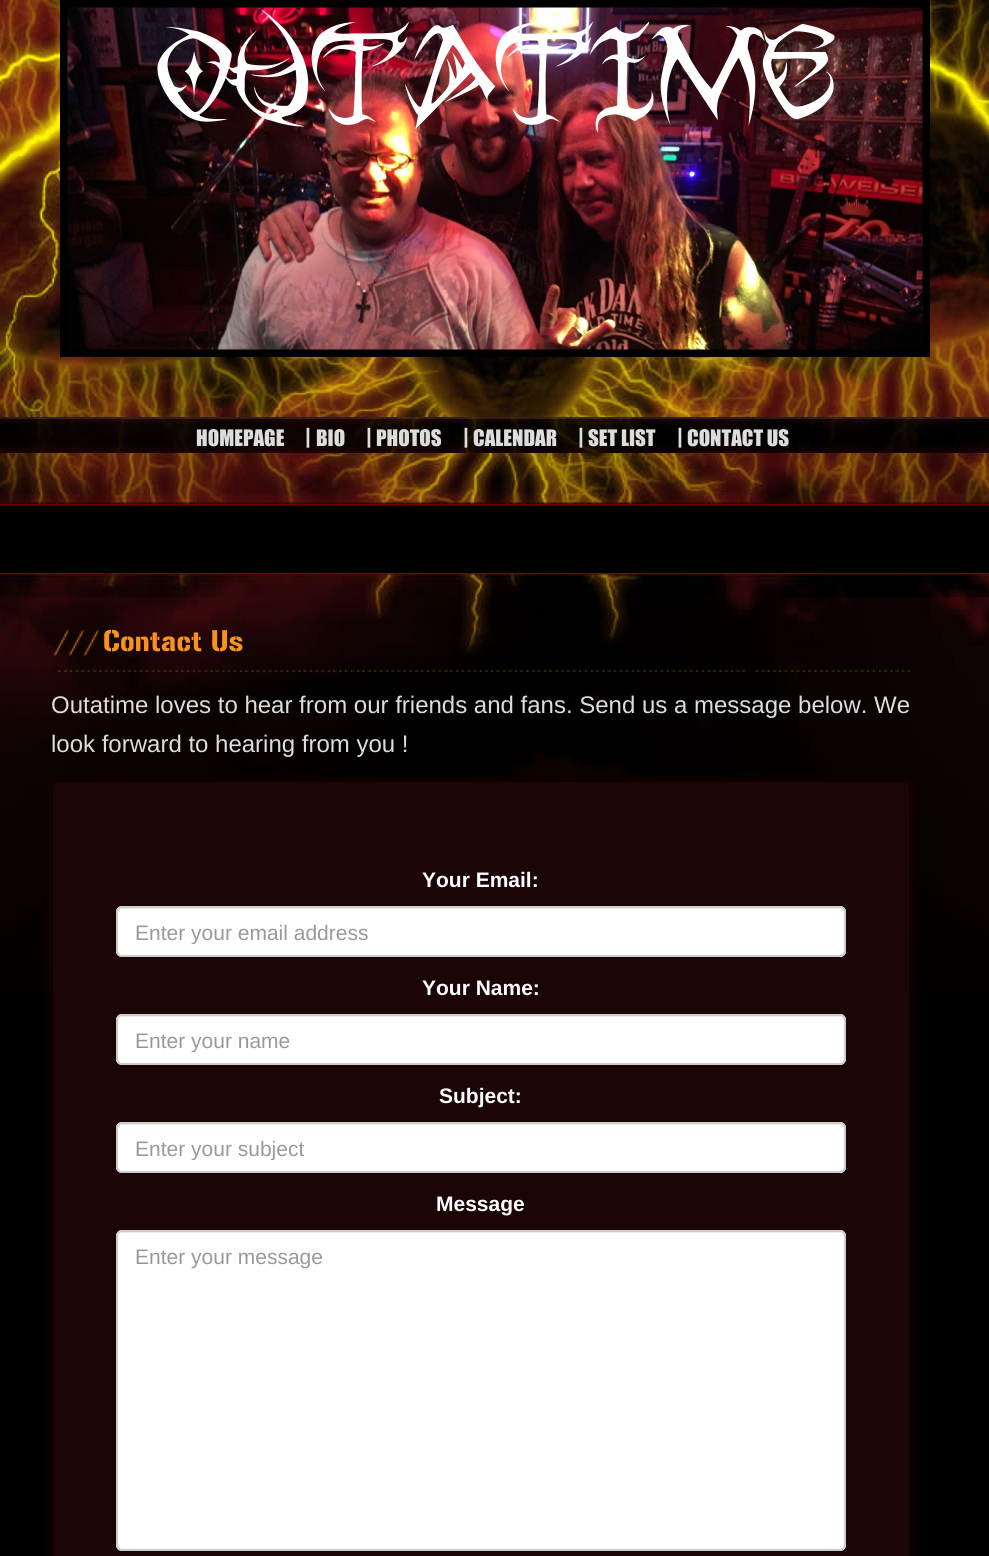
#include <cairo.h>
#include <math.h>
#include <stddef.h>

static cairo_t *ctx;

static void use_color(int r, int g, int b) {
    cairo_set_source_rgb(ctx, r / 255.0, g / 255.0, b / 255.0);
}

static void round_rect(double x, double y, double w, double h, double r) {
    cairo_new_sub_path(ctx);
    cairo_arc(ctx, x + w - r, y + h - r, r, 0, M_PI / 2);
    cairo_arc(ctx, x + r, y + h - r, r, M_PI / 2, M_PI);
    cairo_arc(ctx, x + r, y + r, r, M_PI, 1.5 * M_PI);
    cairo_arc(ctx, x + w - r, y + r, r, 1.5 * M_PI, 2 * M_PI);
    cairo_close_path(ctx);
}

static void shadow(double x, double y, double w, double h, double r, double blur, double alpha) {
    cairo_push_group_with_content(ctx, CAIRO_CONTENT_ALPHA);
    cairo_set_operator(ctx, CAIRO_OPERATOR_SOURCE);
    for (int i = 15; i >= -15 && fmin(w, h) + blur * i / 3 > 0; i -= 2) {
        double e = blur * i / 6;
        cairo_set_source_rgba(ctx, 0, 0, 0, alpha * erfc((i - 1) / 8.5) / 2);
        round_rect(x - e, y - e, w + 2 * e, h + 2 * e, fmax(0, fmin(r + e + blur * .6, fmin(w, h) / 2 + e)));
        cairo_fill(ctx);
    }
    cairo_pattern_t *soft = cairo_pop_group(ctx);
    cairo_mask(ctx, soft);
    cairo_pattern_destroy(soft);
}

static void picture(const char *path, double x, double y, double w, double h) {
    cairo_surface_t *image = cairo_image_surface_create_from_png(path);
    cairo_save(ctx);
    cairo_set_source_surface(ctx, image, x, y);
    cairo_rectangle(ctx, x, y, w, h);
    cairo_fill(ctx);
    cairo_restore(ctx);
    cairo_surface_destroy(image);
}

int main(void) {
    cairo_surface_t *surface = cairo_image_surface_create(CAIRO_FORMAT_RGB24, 989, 1556);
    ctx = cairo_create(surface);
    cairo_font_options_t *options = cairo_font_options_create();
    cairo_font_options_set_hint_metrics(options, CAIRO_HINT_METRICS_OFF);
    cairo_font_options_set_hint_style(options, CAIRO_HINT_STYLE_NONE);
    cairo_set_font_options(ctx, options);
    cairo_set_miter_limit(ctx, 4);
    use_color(0, 0, 0);
    cairo_paint(ctx);
    picture("img1.png", 0, 0, 989, 506);
    cairo_rectangle(ctx, 64, 4, 862, 349);
    use_color(0, 0, 0);
    cairo_set_line_width(ctx, 8);
    cairo_stroke(ctx);
    picture("img2.png", 67, 7, 856, 343);
    cairo_select_font_face(ctx, "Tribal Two", CAIRO_FONT_SLANT_NORMAL, CAIRO_FONT_WEIGHT_NORMAL);
    cairo_set_font_size(ctx, 102);
    use_color(255, 255, 255);
    cairo_move_to(ctx, 155, 119);
    cairo_show_text(ctx, "OUTATIME");
    picture("img3.png", 0, 417, 989, 36);
    cairo_set_source_rgba(ctx, 1, 1, 1, 0.1);
    cairo_rectangle(ctx, 0, 417, 989, 2);
    cairo_fill(ctx);
    cairo_select_font_face(ctx, "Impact", CAIRO_FONT_SLANT_NORMAL, CAIRO_FONT_WEIGHT_NORMAL);
    cairo_set_font_size(ctx, 21);
    use_color(221, 221, 221);
    cairo_move_to(ctx, 196, 446);
    cairo_show_text(ctx, "HOMEPAGE");
    cairo_select_font_face(ctx, "Liberation Sans", CAIRO_FONT_SLANT_NORMAL, CAIRO_FONT_WEIGHT_BOLD);
    cairo_move_to(ctx, 305, 443);
    cairo_show_text(ctx, "|");
    cairo_select_font_face(ctx, "Impact", CAIRO_FONT_SLANT_NORMAL, CAIRO_FONT_WEIGHT_NORMAL);
    cairo_move_to(ctx, 316, 446);
    cairo_show_text(ctx, "BIO");
    cairo_select_font_face(ctx, "Liberation Sans", CAIRO_FONT_SLANT_NORMAL, CAIRO_FONT_WEIGHT_BOLD);
    cairo_move_to(ctx, 366, 443);
    cairo_show_text(ctx, "|");
    cairo_select_font_face(ctx, "Impact", CAIRO_FONT_SLANT_NORMAL, CAIRO_FONT_WEIGHT_NORMAL);
    cairo_move_to(ctx, 376, 446);
    cairo_show_text(ctx, "PHOTOS");
    cairo_select_font_face(ctx, "Liberation Sans", CAIRO_FONT_SLANT_NORMAL, CAIRO_FONT_WEIGHT_BOLD);
    cairo_move_to(ctx, 463, 443);
    cairo_show_text(ctx, "|");
    cairo_select_font_face(ctx, "Impact", CAIRO_FONT_SLANT_NORMAL, CAIRO_FONT_WEIGHT_NORMAL);
    cairo_move_to(ctx, 473, 446);
    cairo_show_text(ctx, "CALENDAR");
    cairo_select_font_face(ctx, "Liberation Sans", CAIRO_FONT_SLANT_NORMAL, CAIRO_FONT_WEIGHT_BOLD);
    cairo_move_to(ctx, 578, 443);
    cairo_show_text(ctx, "|");
    cairo_select_font_face(ctx, "Impact", CAIRO_FONT_SLANT_NORMAL, CAIRO_FONT_WEIGHT_NORMAL);
    cairo_move_to(ctx, 588, 446);
    cairo_show_text(ctx, "SET LIST");
    cairo_select_font_face(ctx, "Liberation Sans", CAIRO_FONT_SLANT_NORMAL, CAIRO_FONT_WEIGHT_BOLD);
    cairo_move_to(ctx, 677, 443);
    cairo_show_text(ctx, "|");
    cairo_select_font_face(ctx, "Impact", CAIRO_FONT_SLANT_NORMAL, CAIRO_FONT_WEIGHT_NORMAL);
    cairo_move_to(ctx, 687, 446);
    cairo_show_text(ctx, "CONTACT US");
    picture("img4.png", 0, 573, 989, 419);
    picture("img5.png", 53, 629, 858, 43);
    cairo_select_font_face(ctx, "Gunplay", CAIRO_FONT_SLANT_NORMAL, CAIRO_FONT_WEIGHT_NORMAL);
    cairo_set_font_size(ctx, 29.5);
    use_color(247, 147, 29);
    cairo_move_to(ctx, 103, 651);
    cairo_show_text(ctx, "Contact Us");
    cairo_select_font_face(ctx, "Liberation Sans", CAIRO_FONT_SLANT_NORMAL, CAIRO_FONT_WEIGHT_NORMAL);
    cairo_set_font_size(ctx, 24);
    use_color(221, 221, 221);
    cairo_move_to(ctx, 51, 713);
    cairo_show_text(ctx, "Outatime loves to hear from our friends and fans. Send us a message below. We");
    cairo_move_to(ctx, 51, 752);
    cairo_show_text(ctx, "look forward to hearing from you !");
    use_color(34, 0, 0);
    shadow(51, 780, 860, 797, 9, 4, 1);
    use_color(27, 5, 7);
    round_rect(52, 781, 858, 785, 8);
    cairo_fill_preserve(ctx);
    use_color(17, 0, 0);
    cairo_set_line_width(ctx, 2);
    cairo_stroke(ctx);
    cairo_select_font_face(ctx, "Liberation Sans", CAIRO_FONT_SLANT_NORMAL, CAIRO_FONT_WEIGHT_BOLD);
    cairo_set_font_size(ctx, 21);
    use_color(255, 255, 255);
    cairo_move_to(ctx, 422, 887);
    cairo_show_text(ctx, "Your Email:");
    round_rect(116, 906, 730, 51, 6);
    cairo_fill(ctx);
    use_color(236, 236, 236);
    cairo_new_path(ctx);
    cairo_move_to(ctx, 122, 909);
    cairo_line_to(ctx, 840, 909);
    cairo_curve_to(ctx, 842, 909, 844, 911, 844, 914);
    cairo_line_to(ctx, 844, 952);
    cairo_line_to(ctx, 843, 955);
    cairo_curve_to(ctx, 844, 954, 845, 952, 845, 951);
    cairo_line_to(ctx, 845, 913);
    cairo_curve_to(ctx, 845, 910, 843, 908, 840, 908);
    cairo_line_to(ctx, 122, 908);
    cairo_curve_to(ctx, 119, 908, 117, 910, 117, 913);
    cairo_line_to(ctx, 117, 914);
    cairo_curve_to(ctx, 117, 911, 119, 909, 122, 909);
    cairo_close_path(ctx);
    cairo_fill(ctx);
    round_rect(117, 907, 728, 49, 5);
    use_color(204, 204, 204);
    cairo_stroke(ctx);
    cairo_save(ctx);
    cairo_rectangle(ctx, 135, 920, 692, 24);
    cairo_clip(ctx);
    cairo_select_font_face(ctx, "Liberation Sans", CAIRO_FONT_SLANT_NORMAL, CAIRO_FONT_WEIGHT_NORMAL);
    use_color(153, 153, 153);
    cairo_move_to(ctx, 135, 940);
    cairo_show_text(ctx, "Enter your email address");
    cairo_restore(ctx);
    use_color(255, 255, 255);
    cairo_move_to(ctx, 422, 995);
    cairo_show_text(ctx, "Your Name:");
    round_rect(116, 1014, 730, 51, 6);
    cairo_fill(ctx);
    use_color(236, 236, 236);
    cairo_new_path(ctx);
    cairo_move_to(ctx, 122, 1017);
    cairo_line_to(ctx, 840, 1017);
    cairo_curve_to(ctx, 842, 1017, 844, 1019, 844, 1022);
    cairo_line_to(ctx, 844, 1060);
    cairo_line_to(ctx, 843, 1063);
    cairo_curve_to(ctx, 844, 1062, 845, 1060, 845, 1059);
    cairo_line_to(ctx, 845, 1021);
    cairo_curve_to(ctx, 845, 1018, 843, 1016, 840, 1016);
    cairo_line_to(ctx, 122, 1016);
    cairo_curve_to(ctx, 119, 1016, 117, 1018, 117, 1021);
    cairo_line_to(ctx, 117, 1022);
    cairo_curve_to(ctx, 117, 1019, 119, 1017, 122, 1017);
    cairo_close_path(ctx);
    cairo_fill(ctx);
    round_rect(117, 1015, 728, 49, 5);
    use_color(204, 204, 204);
    cairo_stroke(ctx);
    cairo_save(ctx);
    cairo_rectangle(ctx, 135, 1028, 692, 24);
    cairo_clip(ctx);
    cairo_select_font_face(ctx, "Liberation Sans", CAIRO_FONT_SLANT_NORMAL, CAIRO_FONT_WEIGHT_NORMAL);
    use_color(153, 153, 153);
    cairo_move_to(ctx, 135, 1048);
    cairo_show_text(ctx, "Enter your name");
    cairo_restore(ctx);
    use_color(255, 255, 255);
    cairo_move_to(ctx, 439, 1103);
    cairo_show_text(ctx, "Subject:");
    round_rect(116, 1122, 730, 51, 6);
    cairo_fill(ctx);
    use_color(236, 236, 236);
    cairo_new_path(ctx);
    cairo_move_to(ctx, 122, 1125);
    cairo_line_to(ctx, 840, 1125);
    cairo_curve_to(ctx, 842, 1125, 844, 1127, 844, 1130);
    cairo_line_to(ctx, 844, 1168);
    cairo_line_to(ctx, 843, 1171);
    cairo_curve_to(ctx, 844, 1170, 845, 1168, 845, 1167);
    cairo_line_to(ctx, 845, 1129);
    cairo_curve_to(ctx, 845, 1126, 843, 1124, 840, 1124);
    cairo_line_to(ctx, 122, 1124);
    cairo_curve_to(ctx, 119, 1124, 117, 1126, 117, 1129);
    cairo_line_to(ctx, 117, 1130);
    cairo_curve_to(ctx, 117, 1127, 119, 1125, 122, 1125);
    cairo_close_path(ctx);
    cairo_fill(ctx);
    round_rect(117, 1123, 728, 49, 5);
    use_color(204, 204, 204);
    cairo_stroke(ctx);
    cairo_save(ctx);
    cairo_rectangle(ctx, 135, 1136, 692, 24);
    cairo_clip(ctx);
    cairo_select_font_face(ctx, "Liberation Sans", CAIRO_FONT_SLANT_NORMAL, CAIRO_FONT_WEIGHT_NORMAL);
    use_color(153, 153, 153);
    cairo_move_to(ctx, 135, 1156);
    cairo_show_text(ctx, "Enter your subject");
    cairo_restore(ctx);
    use_color(255, 255, 255);
    cairo_move_to(ctx, 436, 1211);
    cairo_show_text(ctx, "Message");
    round_rect(116, 1230, 730, 321, 6);
    cairo_fill(ctx);
    use_color(236, 236, 236);
    cairo_new_path(ctx);
    cairo_move_to(ctx, 122, 1233);
    cairo_line_to(ctx, 840, 1233);
    cairo_curve_to(ctx, 842, 1233, 844, 1235, 844, 1238);
    cairo_line_to(ctx, 844, 1546);
    cairo_line_to(ctx, 843, 1549);
    cairo_curve_to(ctx, 844, 1548, 845, 1546, 845, 1545);
    cairo_line_to(ctx, 845, 1237);
    cairo_curve_to(ctx, 845, 1234, 843, 1232, 840, 1232);
    cairo_line_to(ctx, 122, 1232);
    cairo_curve_to(ctx, 119, 1232, 117, 1234, 117, 1237);
    cairo_line_to(ctx, 117, 1238);
    cairo_curve_to(ctx, 117, 1235, 119, 1233, 122, 1233);
    cairo_close_path(ctx);
    cairo_fill(ctx);
    round_rect(117, 1231, 728, 319, 5);
    use_color(204, 204, 204);
    cairo_stroke(ctx);
    cairo_select_font_face(ctx, "Liberation Sans", CAIRO_FONT_SLANT_NORMAL, CAIRO_FONT_WEIGHT_NORMAL);
    use_color(153, 153, 153);
    cairo_move_to(ctx, 135, 1264);
    cairo_show_text(ctx, "Enter your message");
    cairo_surface_write_to_png(surface, "result.png");
    cairo_font_options_destroy(options);
    cairo_destroy(ctx);
    cairo_surface_destroy(surface);
    return 0;
}
